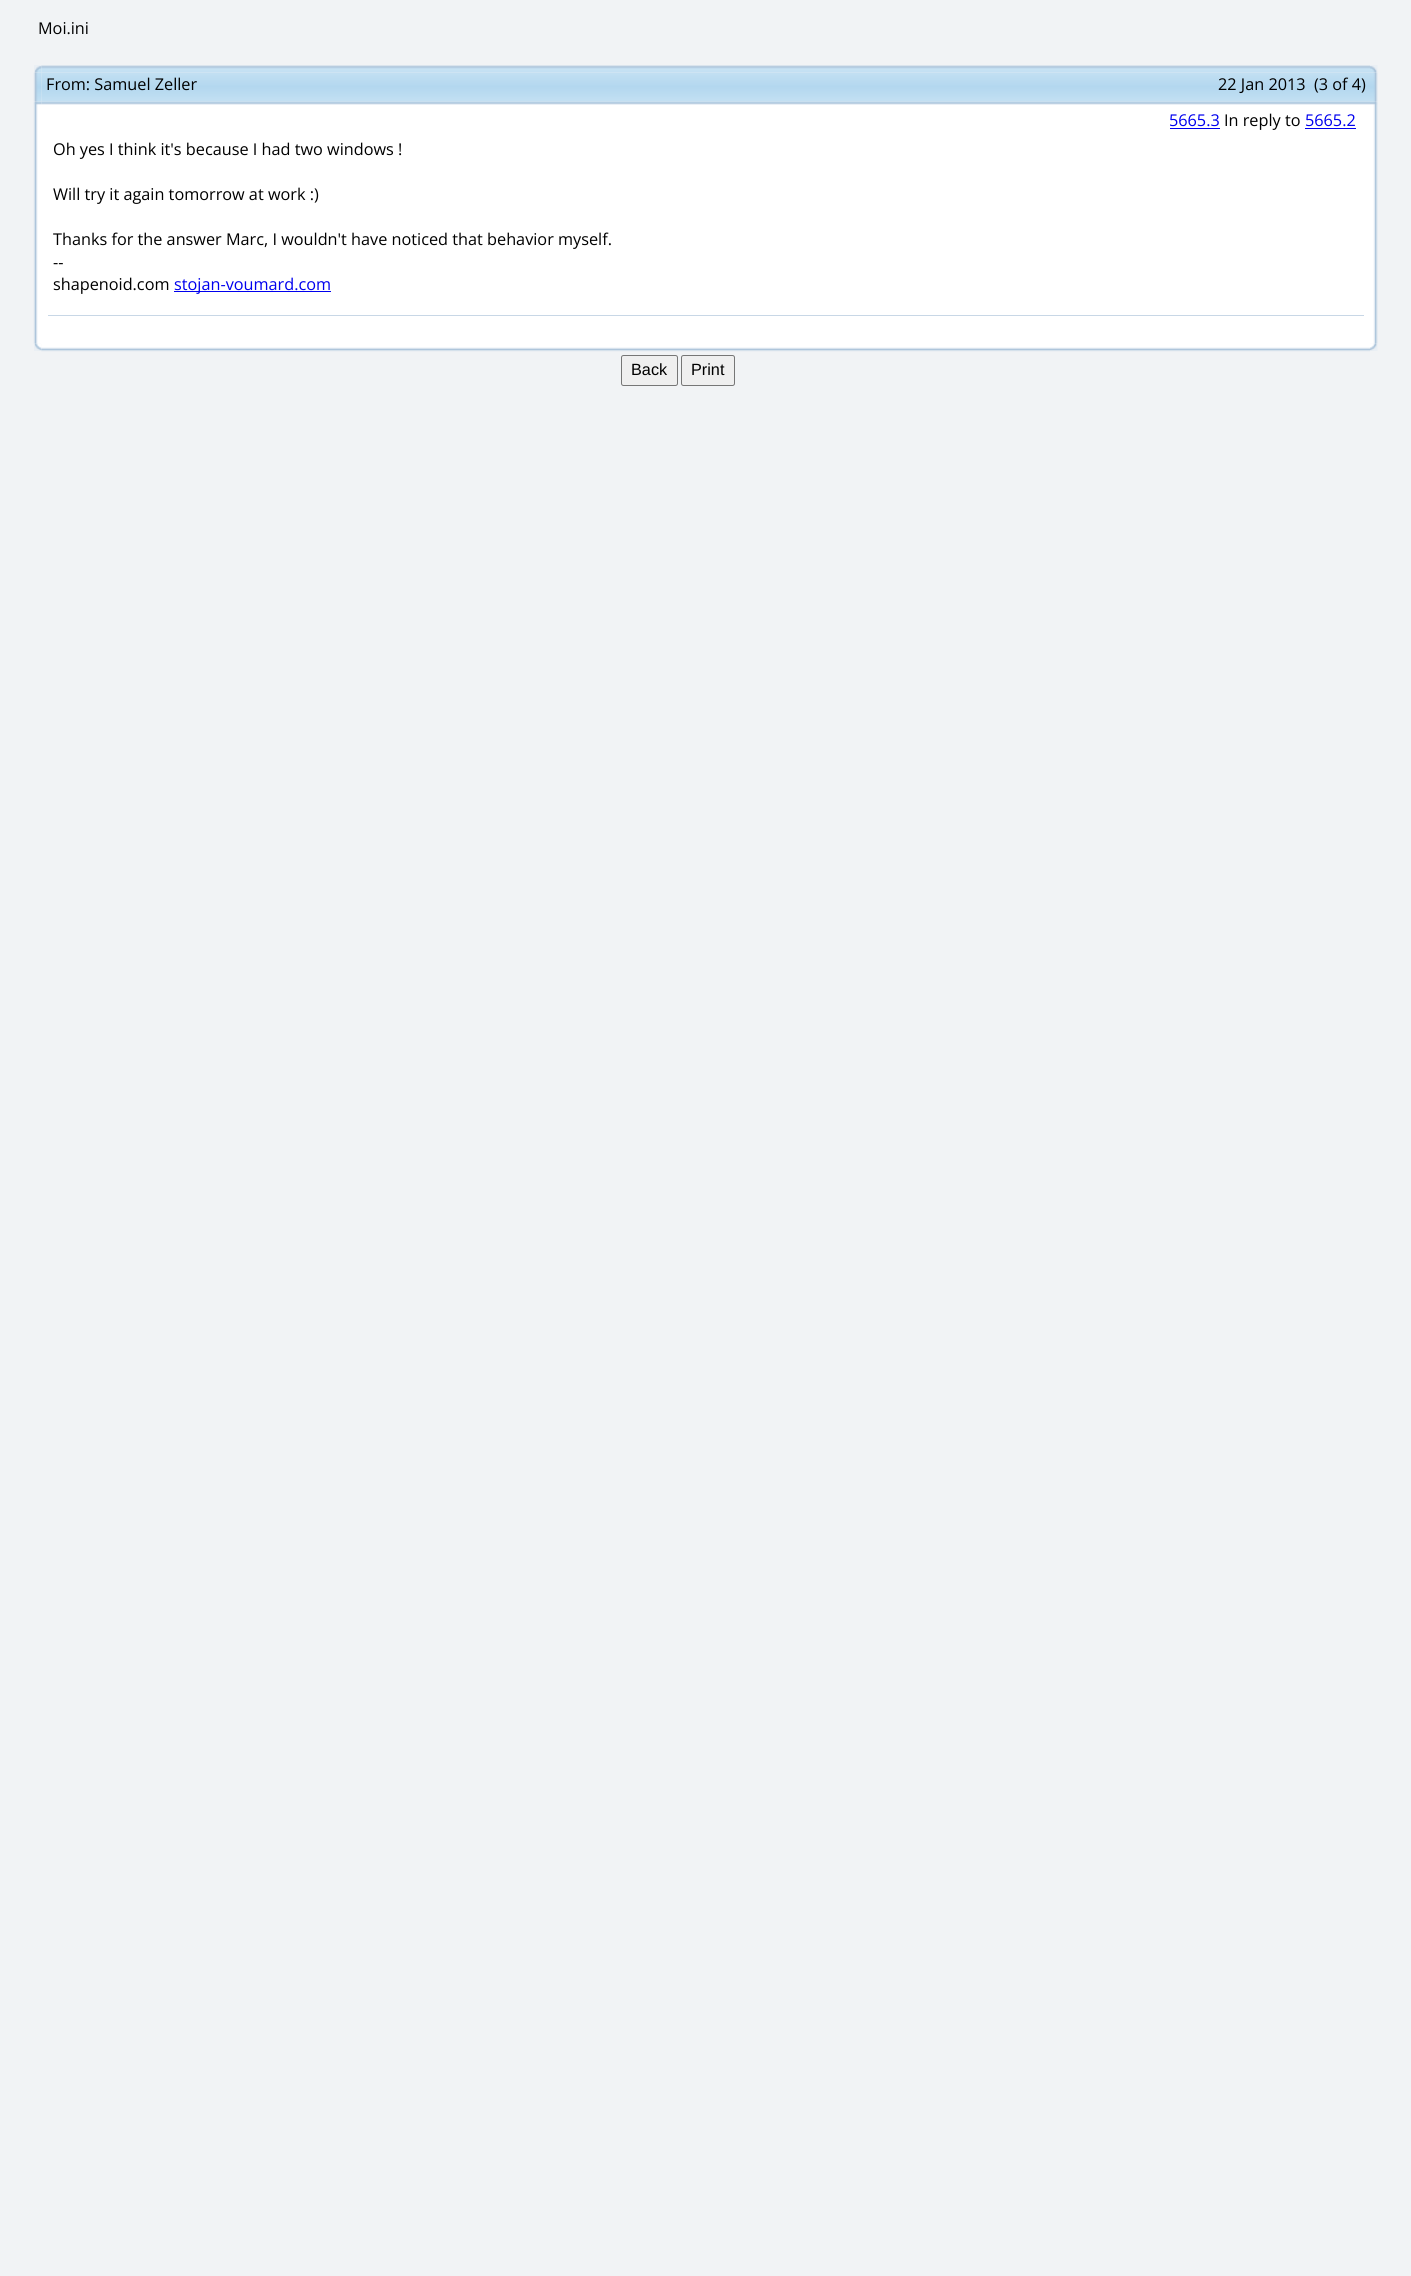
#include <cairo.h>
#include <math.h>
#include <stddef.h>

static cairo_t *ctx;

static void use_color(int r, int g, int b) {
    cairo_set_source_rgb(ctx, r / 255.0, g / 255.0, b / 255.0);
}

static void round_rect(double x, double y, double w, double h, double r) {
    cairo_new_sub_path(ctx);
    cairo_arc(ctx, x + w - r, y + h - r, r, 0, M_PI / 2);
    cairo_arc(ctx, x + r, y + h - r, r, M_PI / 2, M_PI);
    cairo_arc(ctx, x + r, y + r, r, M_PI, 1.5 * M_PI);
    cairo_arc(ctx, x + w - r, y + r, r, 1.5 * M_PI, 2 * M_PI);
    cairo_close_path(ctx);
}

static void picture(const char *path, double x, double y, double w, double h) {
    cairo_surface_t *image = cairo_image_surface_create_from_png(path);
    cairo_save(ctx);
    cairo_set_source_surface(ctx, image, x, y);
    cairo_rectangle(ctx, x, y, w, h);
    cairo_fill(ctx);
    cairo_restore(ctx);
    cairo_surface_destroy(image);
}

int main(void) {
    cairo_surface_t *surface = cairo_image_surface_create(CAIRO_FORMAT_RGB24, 1411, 2276);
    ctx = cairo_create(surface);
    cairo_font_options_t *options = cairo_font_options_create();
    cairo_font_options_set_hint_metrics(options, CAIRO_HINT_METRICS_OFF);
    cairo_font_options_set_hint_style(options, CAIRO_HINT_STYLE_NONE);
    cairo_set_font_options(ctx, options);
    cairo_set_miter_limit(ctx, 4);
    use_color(241, 243, 245);
    cairo_paint(ctx);
    cairo_select_font_face(ctx, "Open Sans", CAIRO_FONT_SLANT_NORMAL, CAIRO_FONT_WEIGHT_NORMAL);
    cairo_set_font_size(ctx, 16.25);
    use_color(0, 0, 0);
    cairo_move_to(ctx, 38, 34);
    cairo_show_text(ctx, "Moi.ini");
    picture("img1.png", 34, 65, 8, 8);
    picture("img2.png", 41, 65, 1329, 8);
    picture("img3.png", 1370, 65, 8, 8);
    picture("img5.png", 41, 72, 1329, 30);
    picture("img4.png", 33, 72, 9, 29);
    cairo_move_to(ctx, 46, 90);
    cairo_show_text(ctx, "From: Samuel Zeller");
    cairo_move_to(ctx, 1218, 90);
    cairo_show_text(ctx, "22 Jan 2013  (3 of 4)");
    picture("img9.png", 1370, 101, 8, 4);
    picture("img6.png", 1370, 72, 8, 30);
    picture("img7.png", 33, 101, 9, 4);
    picture("img8.png", 41, 101, 1329, 4);
    picture("img10.png", 33, 105, 8, 239);
    use_color(255, 255, 255);
    cairo_rectangle(ctx, 41, 105, 1329, 239);
    cairo_fill(ctx);
    use_color(0, 0, 238);
    cairo_move_to(ctx, 1169, 126);
    cairo_show_text(ctx, "5665.3");
    cairo_rectangle(ctx, 1170, 128, 50, 1);
    cairo_fill(ctx);
    use_color(0, 0, 0);
    cairo_move_to(ctx, 1224, 126);
    cairo_show_text(ctx, "In reply to");
    use_color(0, 0, 238);
    cairo_move_to(ctx, 1305, 126);
    cairo_show_text(ctx, "5665.2");
    cairo_rectangle(ctx, 1305, 128, 51, 1);
    cairo_fill(ctx);
    use_color(0, 0, 0);
    cairo_move_to(ctx, 53, 155);
    cairo_show_text(ctx, "Oh yes I think it's because I had two windows !");
    cairo_move_to(ctx, 53, 200);
    cairo_show_text(ctx, "Will try it again tomorrow at work :)");
    cairo_move_to(ctx, 53, 245);
    cairo_show_text(ctx, "Thanks for the answer Marc, I wouldn't have noticed that behavior myself.");
    cairo_move_to(ctx, 53, 268);
    cairo_show_text(ctx, "--");
    cairo_move_to(ctx, 53, 290);
    cairo_show_text(ctx, "shapenoid.com");
    use_color(0, 0, 238);
    cairo_rectangle(ctx, 174, 291, 157, 1);
    cairo_fill(ctx);
    cairo_move_to(ctx, 174, 290);
    cairo_show_text(ctx, "stojan-voumard.com");
    use_color(200, 215, 230);
    cairo_rectangle(ctx, 48, 315, 1316, 1);
    cairo_fill(ctx);
    picture("img11.png", 1370, 105, 8, 239);
    picture("img12.png", 34, 343, 8, 8);
    picture("img13.png", 41, 344, 1329, 8);
    picture("img14.png", 1370, 343, 8, 8);
    use_color(239, 239, 239);
    round_rect(621.5, 355.5, 56, 30, 2);
    cairo_fill_preserve(ctx);
    use_color(118, 118, 118);
    cairo_set_line_width(ctx, 1);
    cairo_stroke(ctx);
    cairo_select_font_face(ctx, "Liberation Sans", CAIRO_FONT_SLANT_NORMAL, CAIRO_FONT_WEIGHT_NORMAL);
    use_color(0, 0, 0);
    cairo_move_to(ctx, 631, 375);
    cairo_show_text(ctx, "Back");
    use_color(239, 239, 239);
    round_rect(681.5, 355.5, 53, 30, 2);
    cairo_fill_preserve(ctx);
    use_color(118, 118, 118);
    cairo_stroke(ctx);
    use_color(0, 0, 0);
    cairo_move_to(ctx, 691, 375);
    cairo_show_text(ctx, "Print");
    cairo_surface_write_to_png(surface, "result.png");
    cairo_font_options_destroy(options);
    cairo_destroy(ctx);
    cairo_surface_destroy(surface);
    return 0;
}
